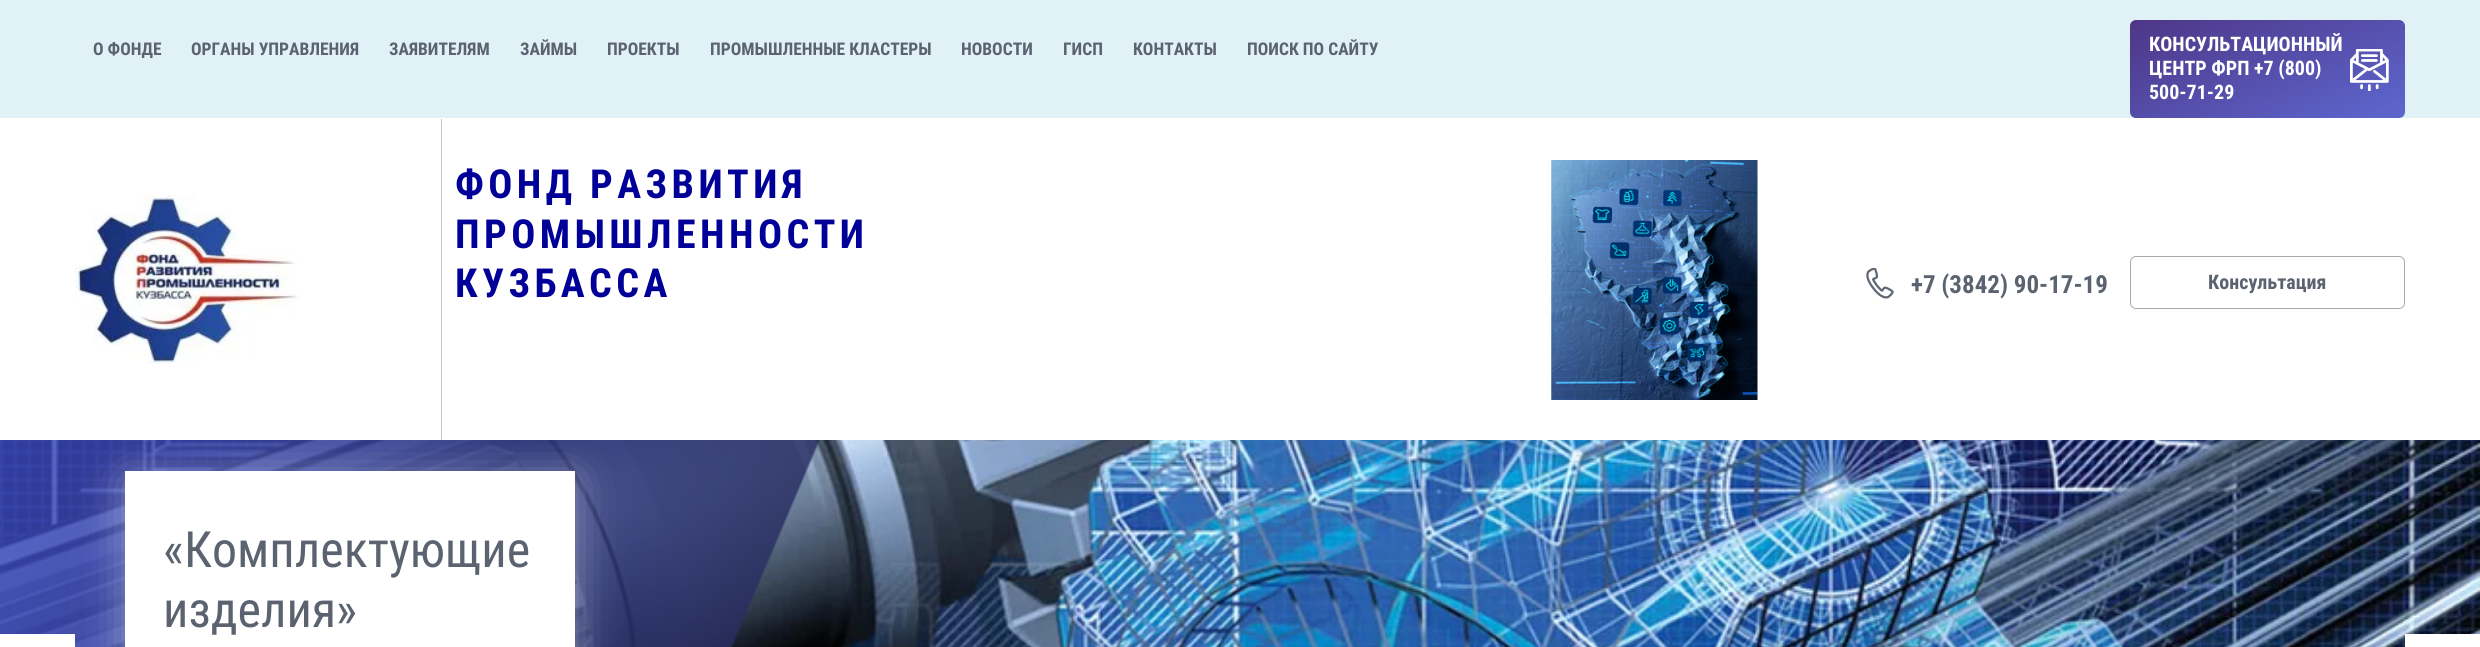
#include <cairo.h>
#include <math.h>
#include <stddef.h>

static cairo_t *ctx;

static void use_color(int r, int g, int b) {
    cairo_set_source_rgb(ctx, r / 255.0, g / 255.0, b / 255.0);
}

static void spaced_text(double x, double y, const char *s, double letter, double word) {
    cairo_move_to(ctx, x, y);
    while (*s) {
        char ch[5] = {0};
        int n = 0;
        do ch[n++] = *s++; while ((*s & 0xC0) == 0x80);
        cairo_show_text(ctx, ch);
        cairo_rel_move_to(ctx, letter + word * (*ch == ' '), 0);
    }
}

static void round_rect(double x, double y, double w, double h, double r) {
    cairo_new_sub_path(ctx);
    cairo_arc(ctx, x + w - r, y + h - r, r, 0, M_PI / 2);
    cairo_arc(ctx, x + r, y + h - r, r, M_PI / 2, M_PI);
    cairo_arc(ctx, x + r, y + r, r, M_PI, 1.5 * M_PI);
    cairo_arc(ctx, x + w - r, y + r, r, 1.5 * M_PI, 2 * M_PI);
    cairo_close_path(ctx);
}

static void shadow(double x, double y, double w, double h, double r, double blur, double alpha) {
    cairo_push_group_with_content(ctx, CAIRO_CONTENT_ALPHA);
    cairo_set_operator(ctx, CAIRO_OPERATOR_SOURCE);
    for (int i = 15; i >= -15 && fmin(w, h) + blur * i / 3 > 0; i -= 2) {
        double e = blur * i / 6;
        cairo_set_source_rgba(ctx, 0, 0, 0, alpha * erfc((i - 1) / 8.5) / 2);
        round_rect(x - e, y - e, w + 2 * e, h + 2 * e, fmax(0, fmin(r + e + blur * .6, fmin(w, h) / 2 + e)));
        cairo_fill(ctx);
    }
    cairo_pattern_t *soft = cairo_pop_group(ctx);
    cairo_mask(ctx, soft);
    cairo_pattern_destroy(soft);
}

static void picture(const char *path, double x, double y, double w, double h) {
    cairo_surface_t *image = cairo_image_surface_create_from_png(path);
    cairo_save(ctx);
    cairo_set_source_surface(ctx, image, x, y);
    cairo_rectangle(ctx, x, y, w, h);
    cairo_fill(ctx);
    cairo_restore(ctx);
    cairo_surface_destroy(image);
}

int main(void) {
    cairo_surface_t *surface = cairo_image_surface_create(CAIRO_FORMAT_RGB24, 2480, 647);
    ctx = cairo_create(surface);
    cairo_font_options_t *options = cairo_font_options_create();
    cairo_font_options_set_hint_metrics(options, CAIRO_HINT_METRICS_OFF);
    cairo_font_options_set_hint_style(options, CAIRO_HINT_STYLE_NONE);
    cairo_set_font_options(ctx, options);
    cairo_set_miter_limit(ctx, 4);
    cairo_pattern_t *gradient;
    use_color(255, 255, 255);
    cairo_paint(ctx);
    use_color(225, 242, 247);
    cairo_rectangle(ctx, 0, 0, 2480, 118);
    cairo_fill(ctx);
    cairo_select_font_face(ctx, "Roboto Condensed", CAIRO_FONT_SLANT_NORMAL, CAIRO_FONT_WEIGHT_BOLD);
    cairo_set_font_size(ctx, 17.5);
    use_color(91, 99, 112);
    cairo_move_to(ctx, 93, 55);
    cairo_show_text(ctx, "О ФОНДЕ");
    cairo_move_to(ctx, 191, 55);
    cairo_show_text(ctx, "ОРГАНЫ УПРАВЛЕНИЯ");
    cairo_move_to(ctx, 389, 55);
    cairo_show_text(ctx, "ЗАЯВИТЕЛЯМ");
    cairo_move_to(ctx, 520, 55);
    cairo_show_text(ctx, "ЗАЙМЫ");
    cairo_move_to(ctx, 607, 55);
    cairo_show_text(ctx, "ПРОЕКТЫ");
    cairo_move_to(ctx, 710, 55);
    cairo_show_text(ctx, "ПРОМЫШЛЕННЫЕ КЛАСТЕРЫ");
    cairo_move_to(ctx, 961, 55);
    cairo_show_text(ctx, "НОВОСТИ");
    cairo_move_to(ctx, 1063, 55);
    cairo_show_text(ctx, "ГИСП");
    cairo_move_to(ctx, 1133, 55);
    cairo_show_text(ctx, "КОНТАКТЫ");
    cairo_move_to(ctx, 1247, 55);
    cairo_show_text(ctx, "ПОИСК ПО САЙТУ");
    gradient = cairo_pattern_create_linear(2308, 161, 2227, -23);
    cairo_pattern_add_color_stop_rgba(gradient, 0, 0.365, 0.404, 0.812, 1);
    cairo_pattern_add_color_stop_rgba(gradient, 1, 0.306, 0.212, 0.529, 1);
    cairo_set_source(ctx, gradient);
    cairo_pattern_destroy(gradient);
    round_rect(2130, 20, 275, 98, 6);
    cairo_fill(ctx);
    picture("img1.png", 2350, 49, 39, 42);
    cairo_set_font_size(ctx, 20);
    use_color(255, 255, 255);
    cairo_move_to(ctx, 2149, 51);
    cairo_show_text(ctx, "КОНСУЛЬТАЦИОННЫЙ");
    cairo_move_to(ctx, 2149, 75);
    cairo_show_text(ctx, "ЦЕНТР ФРП +7 (800)");
    cairo_move_to(ctx, 2149, 99);
    cairo_show_text(ctx, "500-71-29");
    picture("img2.png", 75, 195, 225, 169);
    picture("img5.png", 0, 440, 2480, 207);
    picture("img6.png", 0, 440, 820, 207);
    use_color(255, 255, 255);
    shadow(125, 478, 450, 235, 0, 22, 0.42);
    use_color(199, 199, 199);
    cairo_rectangle(ctx, 441, 119, 1, 321);
    cairo_fill(ctx);
    cairo_set_font_size(ctx, 40);
    use_color(0, 0, 153);
    spaced_text(455, 198, "ФОНД РАЗВИТИЯ", 4.4, 0);
    picture("img3.png", 1551, 160, 207, 240);
    spaced_text(455, 248, "ПРОМЫШЛЕННОСТИ", 4.4, 0);
    spaced_text(455, 297, "КУЗБАССА", 4.4, 0);
    picture("img4.png", 1866, 268, 28, 31);
    cairo_set_font_size(ctx, 25);
    use_color(91, 99, 112);
    cairo_move_to(ctx, 1911, 293);
    cairo_show_text(ctx, "+7 (3842) 90-17-19");
    round_rect(2130.5, 256.5, 274, 52, 5.5);
    use_color(165, 169, 176);
    cairo_set_line_width(ctx, 1);
    cairo_stroke(ctx);
    cairo_set_font_size(ctx, 20);
    use_color(91, 99, 112);
    cairo_move_to(ctx, 2208, 289);
    cairo_show_text(ctx, "Консультация");
    use_color(255, 255, 255);
    cairo_rectangle(ctx, 125, 471, 450, 176);
    cairo_fill(ctx);
    cairo_select_font_face(ctx, "Roboto Condensed", CAIRO_FONT_SLANT_NORMAL, CAIRO_FONT_WEIGHT_NORMAL);
    cairo_set_font_size(ctx, 50);
    use_color(91, 99, 112);
    cairo_move_to(ctx, 163, 567);
    cairo_show_text(ctx, "«Комплектующие");
    cairo_move_to(ctx, 163, 627);
    cairo_show_text(ctx, "изделия»");
    use_color(255, 255, 255);
    cairo_rectangle(ctx, 0, 634, 75, 13);
    cairo_fill(ctx);
    cairo_rectangle(ctx, 2405, 634, 75, 13);
    cairo_fill(ctx);
    cairo_surface_write_to_png(surface, "result.png");
    cairo_font_options_destroy(options);
    cairo_destroy(ctx);
    cairo_surface_destroy(surface);
    return 0;
}
